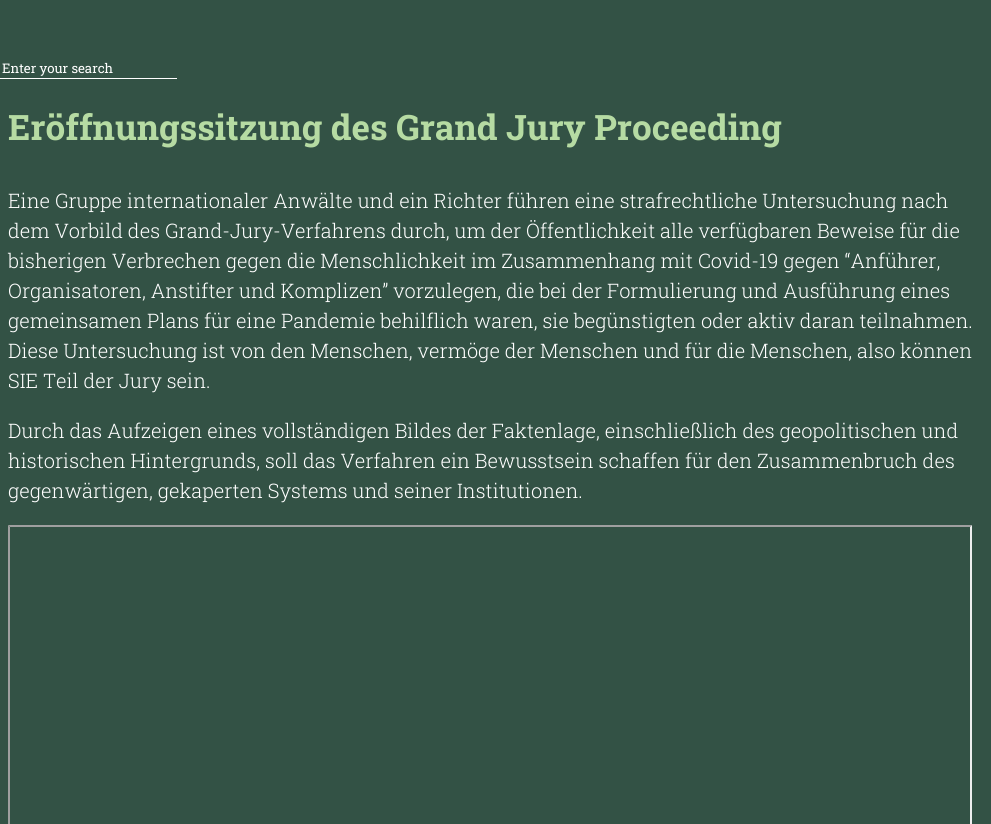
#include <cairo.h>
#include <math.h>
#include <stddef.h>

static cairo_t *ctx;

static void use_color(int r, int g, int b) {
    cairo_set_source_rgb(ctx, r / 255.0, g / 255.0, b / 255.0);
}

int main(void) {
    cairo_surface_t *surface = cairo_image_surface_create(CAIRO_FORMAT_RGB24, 991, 824);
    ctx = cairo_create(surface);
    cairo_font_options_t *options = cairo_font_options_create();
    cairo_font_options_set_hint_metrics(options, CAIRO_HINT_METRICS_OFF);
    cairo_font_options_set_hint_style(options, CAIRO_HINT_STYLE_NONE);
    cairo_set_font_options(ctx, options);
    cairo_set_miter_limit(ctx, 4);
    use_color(51, 82, 69);
    cairo_paint(ctx);
    use_color(255, 255, 255);
    cairo_rectangle(ctx, 0, 78, 177, 1);
    cairo_fill(ctx);
    cairo_select_font_face(ctx, "Roboto Slab", CAIRO_FONT_SLANT_NORMAL, CAIRO_FONT_WEIGHT_NORMAL);
    cairo_set_font_size(ctx, 13.25);
    cairo_move_to(ctx, 2, 73);
    cairo_show_text(ctx, "Enter your search");
    cairo_select_font_face(ctx, "Roboto Slab", CAIRO_FONT_SLANT_NORMAL, CAIRO_FONT_WEIGHT_BOLD);
    cairo_set_font_size(ctx, 35);
    use_color(182, 219, 163);
    cairo_move_to(ctx, 8, 140);
    cairo_show_text(ctx, "Eröffnungssitzung des Grand Jury Proceeding");
    cairo_select_font_face(ctx, "Roboto Slab Light", CAIRO_FONT_SLANT_NORMAL, CAIRO_FONT_WEIGHT_NORMAL);
    cairo_set_font_size(ctx, 20);
    use_color(255, 255, 255);
    cairo_move_to(ctx, 8, 208);
    cairo_show_text(ctx, "Eine Gruppe internationaler Anwälte und ein Richter führen eine strafrechtliche Untersuchung nach");
    cairo_move_to(ctx, 8, 238);
    cairo_show_text(ctx, "dem Vorbild des Grand-Jury-Verfahrens durch, um der Öffentlichkeit alle verfügbaren Beweise für die");
    cairo_move_to(ctx, 8, 268);
    cairo_show_text(ctx, "bisherigen Verbrechen gegen die Menschlichkeit im Zusammenhang mit Covid-19 gegen “Anführer,");
    cairo_move_to(ctx, 8, 298);
    cairo_show_text(ctx, "Organisatoren, Anstifter und Komplizen” vorzulegen, die bei der Formulierung und Ausführung eines");
    cairo_move_to(ctx, 8, 328);
    cairo_show_text(ctx, "gemeinsamen Plans für eine Pandemie behilflich waren, sie begünstigten oder aktiv daran teilnahmen.");
    cairo_move_to(ctx, 8, 358);
    cairo_show_text(ctx, "Diese Untersuchung ist von den Menschen, vermöge der Menschen und für die Menschen, also können");
    cairo_move_to(ctx, 8, 388);
    cairo_show_text(ctx, "SIE Teil der Jury sein.");
    cairo_move_to(ctx, 8, 438);
    cairo_show_text(ctx, "Durch das Aufzeigen eines vollständigen Bildes der Faktenlage, einschließlich des geopolitischen und");
    cairo_move_to(ctx, 8, 468);
    cairo_show_text(ctx, "historischen Hintergrunds, soll das Verfahren ein Bewusstsein schaffen für den Zusammenbruch des");
    cairo_move_to(ctx, 8, 498);
    cairo_show_text(ctx, "gegenwärtigen, gekaperten Systems und seiner Institutionen.");
    use_color(159, 159, 159);
    cairo_new_path(ctx);
    cairo_move_to(ctx, 8, 525);
    cairo_line_to(ctx, 972, 525);
    cairo_line_to(ctx, 970, 527);
    cairo_line_to(ctx, 10, 527);
    cairo_close_path(ctx);
    cairo_fill(ctx);
    cairo_new_path(ctx);
    cairo_move_to(ctx, 8, 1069);
    cairo_line_to(ctx, 8, 525);
    cairo_line_to(ctx, 10, 527);
    cairo_line_to(ctx, 10, 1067);
    cairo_close_path(ctx);
    cairo_fill(ctx);
    use_color(238, 238, 238);
    cairo_new_path(ctx);
    cairo_move_to(ctx, 972, 525);
    cairo_line_to(ctx, 972, 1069);
    cairo_line_to(ctx, 970, 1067);
    cairo_line_to(ctx, 970, 527);
    cairo_close_path(ctx);
    cairo_fill(ctx);
    cairo_surface_write_to_png(surface, "result.png");
    cairo_font_options_destroy(options);
    cairo_destroy(ctx);
    cairo_surface_destroy(surface);
    return 0;
}
